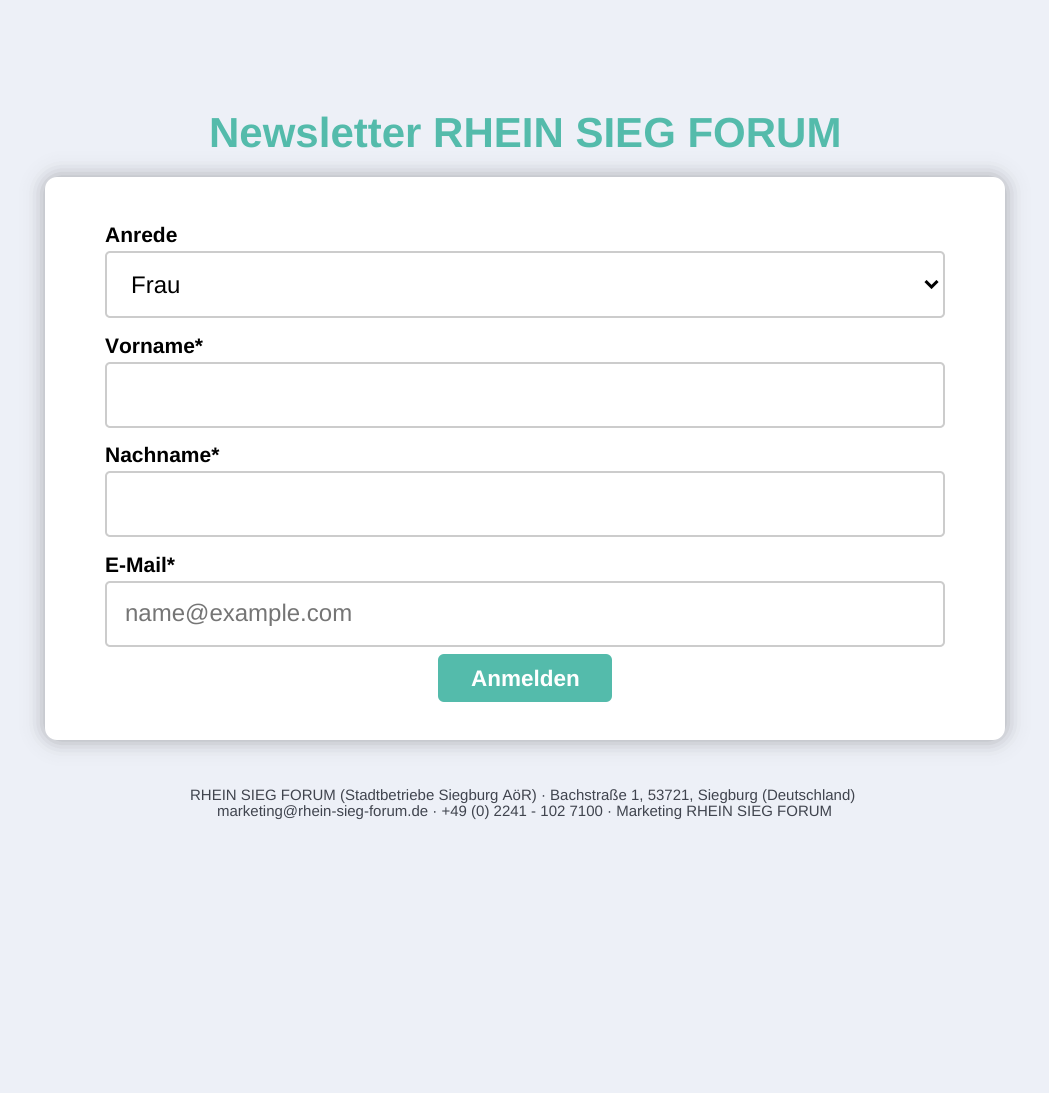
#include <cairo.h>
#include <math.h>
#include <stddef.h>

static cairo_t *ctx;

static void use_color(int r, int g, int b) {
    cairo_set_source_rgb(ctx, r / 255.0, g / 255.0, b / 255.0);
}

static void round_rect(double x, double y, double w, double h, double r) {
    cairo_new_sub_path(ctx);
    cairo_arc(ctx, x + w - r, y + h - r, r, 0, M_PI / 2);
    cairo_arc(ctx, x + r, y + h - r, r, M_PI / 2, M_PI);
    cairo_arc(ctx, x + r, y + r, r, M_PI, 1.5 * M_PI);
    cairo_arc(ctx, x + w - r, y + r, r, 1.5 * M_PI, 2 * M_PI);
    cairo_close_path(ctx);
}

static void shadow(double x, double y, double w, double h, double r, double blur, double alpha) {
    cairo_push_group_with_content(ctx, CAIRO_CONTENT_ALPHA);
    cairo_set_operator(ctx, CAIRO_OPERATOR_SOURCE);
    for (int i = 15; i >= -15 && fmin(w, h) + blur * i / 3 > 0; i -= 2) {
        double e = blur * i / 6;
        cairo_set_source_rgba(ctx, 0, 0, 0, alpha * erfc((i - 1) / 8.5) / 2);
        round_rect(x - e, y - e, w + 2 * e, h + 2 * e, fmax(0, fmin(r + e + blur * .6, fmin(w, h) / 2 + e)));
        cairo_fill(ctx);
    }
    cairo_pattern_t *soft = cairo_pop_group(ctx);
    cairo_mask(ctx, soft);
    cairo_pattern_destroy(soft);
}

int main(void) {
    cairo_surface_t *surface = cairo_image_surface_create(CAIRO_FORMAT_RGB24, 1049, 1093);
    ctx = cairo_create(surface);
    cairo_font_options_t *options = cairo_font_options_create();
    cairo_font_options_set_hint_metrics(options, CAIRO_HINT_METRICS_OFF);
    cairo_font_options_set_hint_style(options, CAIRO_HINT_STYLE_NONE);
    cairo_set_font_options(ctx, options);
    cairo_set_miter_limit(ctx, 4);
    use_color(237, 240, 247);
    cairo_paint(ctx);
    use_color(51, 51, 51);
    shadow(45, 177, 960, 563, 12, 10.5, 0.4);
    cairo_select_font_face(ctx, "Liberation Sans", CAIRO_FONT_SLANT_NORMAL, CAIRO_FONT_WEIGHT_BOLD);
    cairo_set_font_size(ctx, 42);
    use_color(84, 187, 171);
    cairo_move_to(ctx, 209, 147);
    cairo_show_text(ctx, "Newsletter RHEIN SIEG FORUM");
    use_color(255, 255, 255);
    round_rect(45, 177, 960, 563, 12);
    cairo_fill(ctx);
    cairo_set_font_size(ctx, 21);
    use_color(0, 0, 0);
    cairo_move_to(ctx, 105, 242);
    cairo_show_text(ctx, "Anrede");
    round_rect(106, 252, 838, 65, 4);
    use_color(204, 204, 204);
    cairo_stroke(ctx);
    cairo_new_path(ctx);
    cairo_move_to(ctx, 925.5, 281);
    cairo_line_to(ctx, 931.5, 287);
    cairo_line_to(ctx, 937.5, 281);
    use_color(0, 0, 0);
    cairo_set_line_width(ctx, 3);
    cairo_stroke(ctx);
    cairo_select_font_face(ctx, "Liberation Sans", CAIRO_FONT_SLANT_NORMAL, CAIRO_FONT_WEIGHT_NORMAL);
    cairo_set_font_size(ctx, 24);
    cairo_move_to(ctx, 131, 293);
    cairo_show_text(ctx, "Frau");
    cairo_select_font_face(ctx, "Liberation Sans", CAIRO_FONT_SLANT_NORMAL, CAIRO_FONT_WEIGHT_BOLD);
    cairo_set_font_size(ctx, 21);
    cairo_move_to(ctx, 105, 353);
    cairo_show_text(ctx, "Vorname*");
    round_rect(106, 363, 838, 64, 4);
    use_color(204, 204, 204);
    cairo_set_line_width(ctx, 2);
    cairo_stroke(ctx);
    use_color(0, 0, 0);
    cairo_move_to(ctx, 105, 462);
    cairo_show_text(ctx, "Nachname*");
    round_rect(106, 472, 838, 64, 4);
    use_color(204, 204, 204);
    cairo_stroke(ctx);
    use_color(0, 0, 0);
    cairo_move_to(ctx, 105, 572);
    cairo_show_text(ctx, "E-Mail*");
    round_rect(106, 582, 838, 64, 4);
    use_color(204, 204, 204);
    cairo_stroke(ctx);
    cairo_select_font_face(ctx, "Liberation Sans", CAIRO_FONT_SLANT_NORMAL, CAIRO_FONT_WEIGHT_NORMAL);
    cairo_set_font_size(ctx, 24);
    use_color(117, 117, 117);
    cairo_move_to(ctx, 125, 621);
    cairo_show_text(ctx, "name@example.com");
    use_color(84, 187, 171);
    round_rect(438, 654, 174, 48, 6);
    cairo_fill(ctx);
    cairo_select_font_face(ctx, "Liberation Sans", CAIRO_FONT_SLANT_NORMAL, CAIRO_FONT_WEIGHT_BOLD);
    cairo_set_font_size(ctx, 22.5);
    use_color(255, 255, 255);
    cairo_move_to(ctx, 471, 686);
    cairo_show_text(ctx, "Anmelden");
    cairo_select_font_face(ctx, "Liberation Sans", CAIRO_FONT_SLANT_NORMAL, CAIRO_FONT_WEIGHT_NORMAL);
    cairo_set_font_size(ctx, 15);
    use_color(64, 68, 78);
    cairo_move_to(ctx, 190, 800);
    cairo_show_text(ctx, "RHEIN SIEG FORUM (Stadtbetriebe Siegburg AöR) · Bachstraße 1, 53721, Siegburg (Deutschland)");
    cairo_move_to(ctx, 217, 816);
    cairo_show_text(ctx, "marketing@rhein-sieg-forum.de · +49 (0) 2241 - 102 7100 · Marketing RHEIN SIEG FORUM");
    cairo_surface_write_to_png(surface, "result.png");
    cairo_font_options_destroy(options);
    cairo_destroy(ctx);
    cairo_surface_destroy(surface);
    return 0;
}
